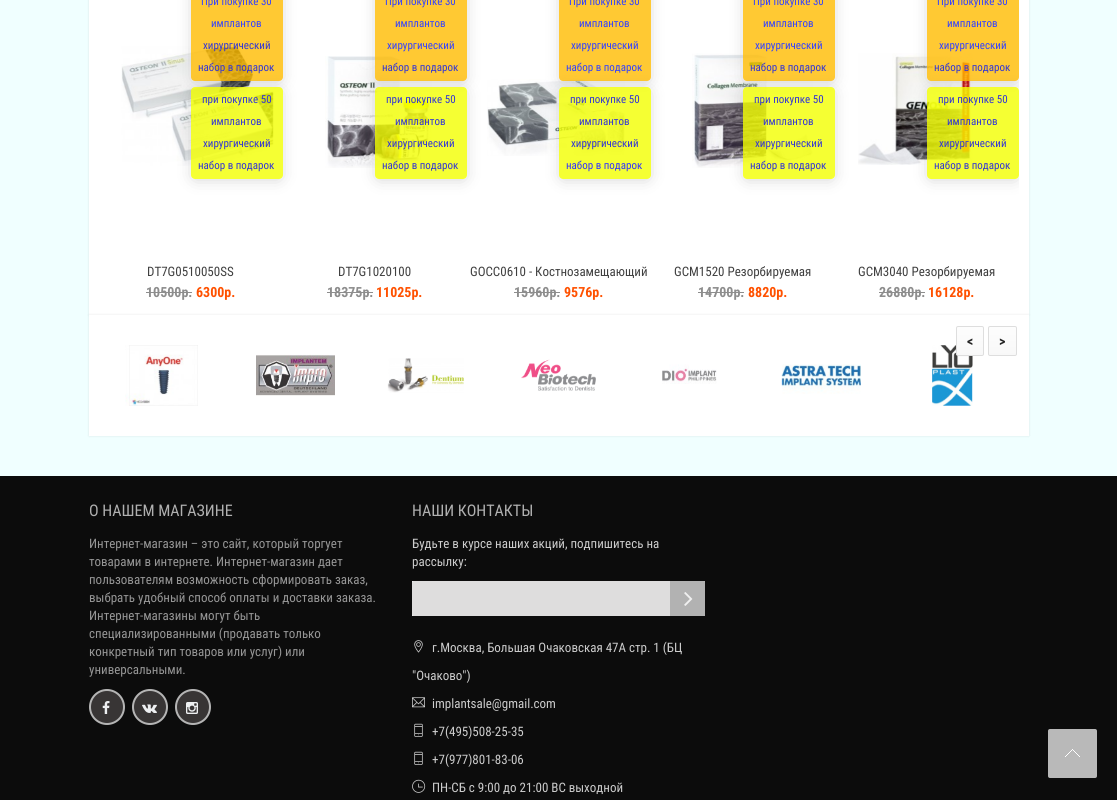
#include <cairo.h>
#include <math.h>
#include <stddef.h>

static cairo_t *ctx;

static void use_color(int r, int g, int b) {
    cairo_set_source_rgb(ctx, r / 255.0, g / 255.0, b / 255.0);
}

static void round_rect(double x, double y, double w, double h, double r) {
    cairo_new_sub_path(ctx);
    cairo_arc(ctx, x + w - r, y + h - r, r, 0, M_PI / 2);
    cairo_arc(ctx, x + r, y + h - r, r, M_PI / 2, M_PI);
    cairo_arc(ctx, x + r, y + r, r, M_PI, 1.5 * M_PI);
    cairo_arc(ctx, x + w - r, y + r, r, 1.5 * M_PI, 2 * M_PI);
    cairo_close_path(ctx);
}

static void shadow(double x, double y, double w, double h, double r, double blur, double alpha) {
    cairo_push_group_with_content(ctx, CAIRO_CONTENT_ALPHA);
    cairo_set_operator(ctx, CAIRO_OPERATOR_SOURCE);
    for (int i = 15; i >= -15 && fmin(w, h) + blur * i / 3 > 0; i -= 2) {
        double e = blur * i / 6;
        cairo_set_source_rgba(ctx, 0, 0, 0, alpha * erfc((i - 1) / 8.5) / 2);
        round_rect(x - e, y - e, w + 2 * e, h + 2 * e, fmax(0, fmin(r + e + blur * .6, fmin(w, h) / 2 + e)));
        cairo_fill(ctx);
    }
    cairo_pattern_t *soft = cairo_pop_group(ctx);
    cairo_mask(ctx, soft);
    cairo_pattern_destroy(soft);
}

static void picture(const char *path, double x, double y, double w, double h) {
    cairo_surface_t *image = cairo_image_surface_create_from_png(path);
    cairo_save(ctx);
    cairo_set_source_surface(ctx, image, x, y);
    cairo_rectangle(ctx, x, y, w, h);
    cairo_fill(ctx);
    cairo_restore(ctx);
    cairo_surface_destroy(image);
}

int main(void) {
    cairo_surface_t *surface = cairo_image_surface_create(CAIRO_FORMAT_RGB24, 1117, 800);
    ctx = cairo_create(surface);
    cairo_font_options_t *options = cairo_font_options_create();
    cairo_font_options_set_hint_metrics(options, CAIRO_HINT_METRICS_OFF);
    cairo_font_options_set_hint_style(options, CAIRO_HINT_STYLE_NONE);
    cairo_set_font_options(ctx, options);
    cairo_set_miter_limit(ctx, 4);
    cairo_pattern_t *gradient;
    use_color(240, 255, 255);
    cairo_paint(ctx);
    use_color(0, 0, 0);
    shadow(89, -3, 940, 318, 0, 1, 0.1);
    use_color(255, 255, 255);
    cairo_rectangle(ctx, 89, 0, 940, 315);
    cairo_fill(ctx);
    picture("img1.png", 121, 43, 153, 123);
    cairo_save(ctx);
    cairo_set_fill_rule(ctx, CAIRO_FILL_RULE_EVEN_ODD);
    cairo_new_path(ctx);
    cairo_move_to(ctx, 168, 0);
    cairo_line_to(ctx, 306, 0);
    cairo_line_to(ctx, 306, 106);
    cairo_line_to(ctx, 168, 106);
    cairo_close_path(ctx);
    cairo_move_to(ctx, 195, -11);
    cairo_line_to(ctx, 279, -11);
    cairo_curve_to(ctx, 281, -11, 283, -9, 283, -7);
    cairo_line_to(ctx, 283, 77);
    cairo_curve_to(ctx, 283, 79, 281, 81, 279, 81);
    cairo_line_to(ctx, 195, 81);
    cairo_curve_to(ctx, 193, 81, 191, 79, 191, 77);
    cairo_line_to(ctx, 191, -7);
    cairo_curve_to(ctx, 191, -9, 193, -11, 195, -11);
    cairo_close_path(ctx);
    cairo_clip(ctx);
    use_color(0, 0, 0);
    shadow(195, -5, 84, 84, 0, 8.5, 0.22);
    cairo_restore(ctx);
    cairo_set_source_rgba(ctx, 1, 0.733, 0, 0.8);
    round_rect(191, -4, 92, 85, 4);
    cairo_fill(ctx);
    cairo_select_font_face(ctx, "Roboto Condensed", CAIRO_FONT_SLANT_NORMAL, CAIRO_FONT_WEIGHT_NORMAL);
    cairo_set_font_size(ctx, 11);
    use_color(51, 65, 255);
    cairo_move_to(ctx, 201, 5);
    cairo_show_text(ctx, "При покупке 30");
    cairo_move_to(ctx, 211, 27);
    cairo_show_text(ctx, "имплантов");
    use_color(50, 53, 213);
    cairo_move_to(ctx, 203, 49);
    cairo_show_text(ctx, "хирургический");
    cairo_move_to(ctx, 198, 71);
    cairo_show_text(ctx, "набор в подарок");
    cairo_save(ctx);
    cairo_set_fill_rule(ctx, CAIRO_FILL_RULE_EVEN_ODD);
    cairo_new_path(ctx);
    cairo_move_to(ctx, 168, 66);
    cairo_line_to(ctx, 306, 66);
    cairo_line_to(ctx, 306, 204);
    cairo_line_to(ctx, 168, 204);
    cairo_close_path(ctx);
    cairo_move_to(ctx, 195, 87);
    cairo_line_to(ctx, 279, 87);
    cairo_curve_to(ctx, 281, 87, 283, 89, 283, 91);
    cairo_line_to(ctx, 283, 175);
    cairo_curve_to(ctx, 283, 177, 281, 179, 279, 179);
    cairo_line_to(ctx, 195, 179);
    cairo_curve_to(ctx, 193, 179, 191, 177, 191, 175);
    cairo_line_to(ctx, 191, 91);
    cairo_curve_to(ctx, 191, 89, 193, 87, 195, 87);
    cairo_close_path(ctx);
    cairo_clip(ctx);
    use_color(0, 0, 0);
    shadow(195, 93, 84, 84, 0, 8.5, 0.22);
    cairo_restore(ctx);
    cairo_set_source_rgba(ctx, 0.949, 1, 0, 0.8);
    round_rect(191, 87, 92, 92, 4);
    cairo_fill(ctx);
    use_color(50, 53, 213);
    cairo_move_to(ctx, 202, 103);
    cairo_show_text(ctx, "при покупке 50");
    cairo_move_to(ctx, 211, 125);
    cairo_show_text(ctx, "имплантов");
    cairo_move_to(ctx, 203, 147);
    cairo_show_text(ctx, "хирургический");
    cairo_move_to(ctx, 198, 169);
    cairo_show_text(ctx, "набор в подарок");
    cairo_set_font_size(ctx, 13);
    use_color(64, 64, 64);
    cairo_move_to(ctx, 147, 276);
    cairo_show_text(ctx, "DT7G0510050SS");
    cairo_select_font_face(ctx, "Roboto Condensed", CAIRO_FONT_SLANT_NORMAL, CAIRO_FONT_WEIGHT_BOLD);
    cairo_set_font_size(ctx, 14);
    use_color(141, 141, 141);
    cairo_move_to(ctx, 146, 297);
    cairo_show_text(ctx, "10500р.");
    cairo_rectangle(ctx, 146, 292, 46, 1);
    cairo_fill(ctx);
    use_color(255, 81, 0);
    cairo_move_to(ctx, 196, 297);
    cairo_show_text(ctx, "6300р.");
    picture("img2.png", 325, 56, 107, 112);
    cairo_save(ctx);
    cairo_set_fill_rule(ctx, CAIRO_FILL_RULE_EVEN_ODD);
    cairo_new_path(ctx);
    cairo_move_to(ctx, 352, 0);
    cairo_line_to(ctx, 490, 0);
    cairo_line_to(ctx, 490, 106);
    cairo_line_to(ctx, 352, 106);
    cairo_close_path(ctx);
    cairo_move_to(ctx, 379, -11);
    cairo_line_to(ctx, 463, -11);
    cairo_curve_to(ctx, 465, -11, 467, -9, 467, -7);
    cairo_line_to(ctx, 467, 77);
    cairo_curve_to(ctx, 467, 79, 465, 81, 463, 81);
    cairo_line_to(ctx, 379, 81);
    cairo_curve_to(ctx, 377, 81, 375, 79, 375, 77);
    cairo_line_to(ctx, 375, -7);
    cairo_curve_to(ctx, 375, -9, 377, -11, 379, -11);
    cairo_close_path(ctx);
    cairo_clip(ctx);
    use_color(0, 0, 0);
    shadow(379, -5, 84, 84, 0, 8.5, 0.22);
    cairo_restore(ctx);
    cairo_set_source_rgba(ctx, 1, 0.733, 0, 0.8);
    round_rect(375, -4, 92, 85, 4);
    cairo_fill(ctx);
    cairo_select_font_face(ctx, "Roboto Condensed", CAIRO_FONT_SLANT_NORMAL, CAIRO_FONT_WEIGHT_NORMAL);
    cairo_set_font_size(ctx, 11);
    use_color(51, 65, 255);
    cairo_move_to(ctx, 385, 5);
    cairo_show_text(ctx, "При покупке 30");
    cairo_move_to(ctx, 395, 27);
    cairo_show_text(ctx, "имплантов");
    cairo_move_to(ctx, 387, 49);
    cairo_show_text(ctx, "хирургический");
    use_color(50, 53, 213);
    cairo_move_to(ctx, 382, 71);
    cairo_show_text(ctx, "набор в подарок");
    cairo_save(ctx);
    cairo_set_fill_rule(ctx, CAIRO_FILL_RULE_EVEN_ODD);
    cairo_new_path(ctx);
    cairo_move_to(ctx, 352, 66);
    cairo_line_to(ctx, 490, 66);
    cairo_line_to(ctx, 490, 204);
    cairo_line_to(ctx, 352, 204);
    cairo_close_path(ctx);
    cairo_move_to(ctx, 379, 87);
    cairo_line_to(ctx, 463, 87);
    cairo_curve_to(ctx, 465, 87, 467, 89, 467, 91);
    cairo_line_to(ctx, 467, 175);
    cairo_curve_to(ctx, 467, 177, 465, 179, 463, 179);
    cairo_line_to(ctx, 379, 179);
    cairo_curve_to(ctx, 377, 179, 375, 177, 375, 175);
    cairo_line_to(ctx, 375, 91);
    cairo_curve_to(ctx, 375, 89, 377, 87, 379, 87);
    cairo_close_path(ctx);
    cairo_clip(ctx);
    use_color(0, 0, 0);
    shadow(379, 93, 84, 84, 0, 8.5, 0.22);
    cairo_restore(ctx);
    cairo_set_source_rgba(ctx, 0.949, 1, 0, 0.8);
    round_rect(375, 87, 92, 92, 4);
    cairo_fill(ctx);
    use_color(50, 53, 213);
    cairo_move_to(ctx, 386, 103);
    cairo_show_text(ctx, "при покупке 50");
    cairo_move_to(ctx, 395, 125);
    cairo_show_text(ctx, "имплантов");
    cairo_move_to(ctx, 387, 147);
    cairo_show_text(ctx, "хирургический");
    cairo_move_to(ctx, 382, 169);
    cairo_show_text(ctx, "набор в подарок");
    cairo_set_font_size(ctx, 13);
    use_color(64, 64, 64);
    cairo_move_to(ctx, 338, 276);
    cairo_show_text(ctx, "DT7G1020100");
    cairo_select_font_face(ctx, "Roboto Condensed", CAIRO_FONT_SLANT_NORMAL, CAIRO_FONT_WEIGHT_BOLD);
    cairo_set_font_size(ctx, 14);
    use_color(141, 141, 141);
    cairo_move_to(ctx, 327, 297);
    cairo_show_text(ctx, "18375р.");
    cairo_rectangle(ctx, 327, 292, 46, 1);
    cairo_fill(ctx);
    use_color(255, 81, 0);
    cairo_move_to(ctx, 376, 297);
    cairo_show_text(ctx, "11025р.");
    picture("img3.png", 487, 75, 138, 81);
    cairo_save(ctx);
    cairo_set_fill_rule(ctx, CAIRO_FILL_RULE_EVEN_ODD);
    cairo_new_path(ctx);
    cairo_move_to(ctx, 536, 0);
    cairo_line_to(ctx, 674, 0);
    cairo_line_to(ctx, 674, 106);
    cairo_line_to(ctx, 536, 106);
    cairo_close_path(ctx);
    cairo_move_to(ctx, 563, -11);
    cairo_line_to(ctx, 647, -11);
    cairo_curve_to(ctx, 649, -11, 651, -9, 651, -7);
    cairo_line_to(ctx, 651, 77);
    cairo_curve_to(ctx, 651, 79, 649, 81, 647, 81);
    cairo_line_to(ctx, 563, 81);
    cairo_curve_to(ctx, 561, 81, 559, 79, 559, 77);
    cairo_line_to(ctx, 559, -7);
    cairo_curve_to(ctx, 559, -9, 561, -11, 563, -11);
    cairo_close_path(ctx);
    cairo_clip(ctx);
    use_color(0, 0, 0);
    shadow(563, -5, 84, 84, 0, 8.5, 0.22);
    cairo_restore(ctx);
    cairo_set_source_rgba(ctx, 1, 0.733, 0, 0.8);
    round_rect(559, -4, 92, 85, 4);
    cairo_fill(ctx);
    cairo_select_font_face(ctx, "Roboto Condensed", CAIRO_FONT_SLANT_NORMAL, CAIRO_FONT_WEIGHT_NORMAL);
    cairo_set_font_size(ctx, 11);
    use_color(51, 65, 255);
    cairo_move_to(ctx, 569, 5);
    cairo_show_text(ctx, "При покупке 30");
    cairo_move_to(ctx, 579, 27);
    cairo_show_text(ctx, "имплантов");
    cairo_move_to(ctx, 571, 49);
    cairo_show_text(ctx, "хирургический");
    cairo_move_to(ctx, 566, 71);
    cairo_show_text(ctx, "набор в подарок");
    cairo_save(ctx);
    cairo_set_fill_rule(ctx, CAIRO_FILL_RULE_EVEN_ODD);
    cairo_new_path(ctx);
    cairo_move_to(ctx, 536, 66);
    cairo_line_to(ctx, 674, 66);
    cairo_line_to(ctx, 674, 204);
    cairo_line_to(ctx, 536, 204);
    cairo_close_path(ctx);
    cairo_move_to(ctx, 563, 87);
    cairo_line_to(ctx, 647, 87);
    cairo_curve_to(ctx, 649, 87, 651, 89, 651, 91);
    cairo_line_to(ctx, 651, 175);
    cairo_curve_to(ctx, 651, 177, 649, 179, 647, 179);
    cairo_line_to(ctx, 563, 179);
    cairo_curve_to(ctx, 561, 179, 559, 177, 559, 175);
    cairo_line_to(ctx, 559, 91);
    cairo_curve_to(ctx, 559, 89, 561, 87, 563, 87);
    cairo_close_path(ctx);
    cairo_clip(ctx);
    use_color(0, 0, 0);
    shadow(563, 93, 84, 84, 0, 8.5, 0.22);
    cairo_restore(ctx);
    cairo_set_source_rgba(ctx, 0.949, 1, 0, 0.8);
    round_rect(559, 87, 92, 92, 4);
    cairo_fill(ctx);
    use_color(50, 53, 213);
    cairo_move_to(ctx, 570, 103);
    cairo_show_text(ctx, "при покупке 50");
    cairo_move_to(ctx, 579, 125);
    cairo_show_text(ctx, "имплантов");
    cairo_move_to(ctx, 571, 147);
    cairo_show_text(ctx, "хирургический");
    use_color(51, 51, 255);
    cairo_move_to(ctx, 566, 169);
    cairo_show_text(ctx, "набор в подарок");
    cairo_set_font_size(ctx, 13);
    use_color(64, 64, 64);
    cairo_move_to(ctx, 470, 276);
    cairo_show_text(ctx, "GOCC0610 - Костнозамещающий");
    cairo_select_font_face(ctx, "Roboto Condensed", CAIRO_FONT_SLANT_NORMAL, CAIRO_FONT_WEIGHT_BOLD);
    cairo_set_font_size(ctx, 14);
    use_color(141, 141, 141);
    cairo_move_to(ctx, 514, 297);
    cairo_show_text(ctx, "15960р.");
    cairo_rectangle(ctx, 514, 292, 46, 1);
    cairo_fill(ctx);
    use_color(255, 81, 0);
    cairo_move_to(ctx, 564, 297);
    cairo_show_text(ctx, "9576р.");
    picture("img4.png", 692, 53, 121, 115);
    cairo_save(ctx);
    cairo_set_fill_rule(ctx, CAIRO_FILL_RULE_EVEN_ODD);
    cairo_new_path(ctx);
    cairo_move_to(ctx, 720, 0);
    cairo_line_to(ctx, 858, 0);
    cairo_line_to(ctx, 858, 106);
    cairo_line_to(ctx, 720, 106);
    cairo_close_path(ctx);
    cairo_move_to(ctx, 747, -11);
    cairo_line_to(ctx, 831, -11);
    cairo_curve_to(ctx, 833, -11, 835, -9, 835, -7);
    cairo_line_to(ctx, 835, 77);
    cairo_curve_to(ctx, 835, 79, 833, 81, 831, 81);
    cairo_line_to(ctx, 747, 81);
    cairo_curve_to(ctx, 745, 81, 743, 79, 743, 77);
    cairo_line_to(ctx, 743, -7);
    cairo_curve_to(ctx, 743, -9, 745, -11, 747, -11);
    cairo_close_path(ctx);
    cairo_clip(ctx);
    use_color(0, 0, 0);
    shadow(747, -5, 84, 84, 0, 8.5, 0.22);
    cairo_restore(ctx);
    cairo_set_source_rgba(ctx, 1, 0.733, 0, 0.8);
    round_rect(743, -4, 92, 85, 4);
    cairo_fill(ctx);
    cairo_select_font_face(ctx, "Roboto Condensed", CAIRO_FONT_SLANT_NORMAL, CAIRO_FONT_WEIGHT_NORMAL);
    cairo_set_font_size(ctx, 11);
    use_color(51, 65, 255);
    cairo_move_to(ctx, 753, 5);
    cairo_show_text(ctx, "При покупке 30");
    cairo_move_to(ctx, 763, 27);
    cairo_show_text(ctx, "имплантов");
    cairo_move_to(ctx, 755, 49);
    cairo_show_text(ctx, "хирургический");
    use_color(50, 53, 213);
    cairo_move_to(ctx, 750, 71);
    cairo_show_text(ctx, "набор в подарок");
    cairo_save(ctx);
    cairo_set_fill_rule(ctx, CAIRO_FILL_RULE_EVEN_ODD);
    cairo_new_path(ctx);
    cairo_move_to(ctx, 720, 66);
    cairo_line_to(ctx, 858, 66);
    cairo_line_to(ctx, 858, 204);
    cairo_line_to(ctx, 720, 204);
    cairo_close_path(ctx);
    cairo_move_to(ctx, 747, 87);
    cairo_line_to(ctx, 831, 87);
    cairo_curve_to(ctx, 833, 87, 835, 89, 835, 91);
    cairo_line_to(ctx, 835, 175);
    cairo_curve_to(ctx, 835, 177, 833, 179, 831, 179);
    cairo_line_to(ctx, 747, 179);
    cairo_curve_to(ctx, 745, 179, 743, 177, 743, 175);
    cairo_line_to(ctx, 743, 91);
    cairo_curve_to(ctx, 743, 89, 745, 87, 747, 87);
    cairo_close_path(ctx);
    cairo_clip(ctx);
    use_color(0, 0, 0);
    shadow(747, 93, 84, 84, 0, 8.5, 0.22);
    cairo_restore(ctx);
    cairo_set_source_rgba(ctx, 0.949, 1, 0, 0.8);
    round_rect(743, 87, 92, 92, 4);
    cairo_fill(ctx);
    use_color(50, 53, 213);
    cairo_move_to(ctx, 754, 103);
    cairo_show_text(ctx, "при покупке 50");
    cairo_move_to(ctx, 763, 125);
    cairo_show_text(ctx, "имплантов");
    cairo_move_to(ctx, 755, 147);
    cairo_show_text(ctx, "хирургический");
    cairo_move_to(ctx, 750, 169);
    cairo_show_text(ctx, "набор в подарок");
    cairo_set_font_size(ctx, 13);
    use_color(64, 64, 64);
    cairo_move_to(ctx, 674, 276);
    cairo_show_text(ctx, "GCM1520 Резорбируемая");
    cairo_select_font_face(ctx, "Roboto Condensed", CAIRO_FONT_SLANT_NORMAL, CAIRO_FONT_WEIGHT_BOLD);
    cairo_set_font_size(ctx, 14);
    use_color(141, 141, 141);
    cairo_move_to(ctx, 698, 297);
    cairo_show_text(ctx, "14700р.");
    cairo_rectangle(ctx, 698, 292, 46, 1);
    cairo_fill(ctx);
    use_color(255, 81, 0);
    cairo_move_to(ctx, 748, 297);
    cairo_show_text(ctx, "8820р.");
    picture("img5.png", 858, 53, 115, 112);
    cairo_save(ctx);
    cairo_rectangle(ctx, 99, 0, 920, 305);
    cairo_clip(ctx);
    cairo_set_fill_rule(ctx, CAIRO_FILL_RULE_EVEN_ODD);
    cairo_new_path(ctx);
    cairo_move_to(ctx, 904, 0);
    cairo_line_to(ctx, 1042, 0);
    cairo_line_to(ctx, 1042, 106);
    cairo_line_to(ctx, 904, 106);
    cairo_close_path(ctx);
    cairo_move_to(ctx, 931, -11);
    cairo_line_to(ctx, 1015, -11);
    cairo_curve_to(ctx, 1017, -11, 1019, -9, 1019, -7);
    cairo_line_to(ctx, 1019, 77);
    cairo_curve_to(ctx, 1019, 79, 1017, 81, 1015, 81);
    cairo_line_to(ctx, 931, 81);
    cairo_curve_to(ctx, 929, 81, 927, 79, 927, 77);
    cairo_line_to(ctx, 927, -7);
    cairo_curve_to(ctx, 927, -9, 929, -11, 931, -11);
    cairo_close_path(ctx);
    cairo_clip(ctx);
    use_color(0, 0, 0);
    shadow(931, -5, 84, 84, 0, 8.5, 0.22);
    cairo_restore(ctx);
    cairo_set_source_rgba(ctx, 1, 0.733, 0, 0.8);
    round_rect(927, -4, 92, 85, 4);
    cairo_fill(ctx);
    cairo_select_font_face(ctx, "Roboto Condensed", CAIRO_FONT_SLANT_NORMAL, CAIRO_FONT_WEIGHT_NORMAL);
    cairo_set_font_size(ctx, 11);
    use_color(51, 65, 255);
    cairo_move_to(ctx, 937, 5);
    cairo_show_text(ctx, "При покупке 30");
    cairo_move_to(ctx, 947, 27);
    cairo_show_text(ctx, "имплантов");
    cairo_move_to(ctx, 939, 49);
    cairo_show_text(ctx, "хирургический");
    use_color(50, 53, 213);
    cairo_move_to(ctx, 934, 71);
    cairo_show_text(ctx, "набор в подарок");
    cairo_save(ctx);
    cairo_rectangle(ctx, 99, 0, 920, 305);
    cairo_clip(ctx);
    cairo_set_fill_rule(ctx, CAIRO_FILL_RULE_EVEN_ODD);
    cairo_new_path(ctx);
    cairo_move_to(ctx, 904, 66);
    cairo_line_to(ctx, 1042, 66);
    cairo_line_to(ctx, 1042, 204);
    cairo_line_to(ctx, 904, 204);
    cairo_close_path(ctx);
    cairo_move_to(ctx, 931, 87);
    cairo_line_to(ctx, 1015, 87);
    cairo_curve_to(ctx, 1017, 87, 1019, 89, 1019, 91);
    cairo_line_to(ctx, 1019, 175);
    cairo_curve_to(ctx, 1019, 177, 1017, 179, 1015, 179);
    cairo_line_to(ctx, 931, 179);
    cairo_curve_to(ctx, 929, 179, 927, 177, 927, 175);
    cairo_line_to(ctx, 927, 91);
    cairo_curve_to(ctx, 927, 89, 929, 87, 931, 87);
    cairo_close_path(ctx);
    cairo_clip(ctx);
    use_color(0, 0, 0);
    shadow(931, 93, 84, 84, 0, 8.5, 0.22);
    cairo_restore(ctx);
    cairo_set_source_rgba(ctx, 0.949, 1, 0, 0.8);
    round_rect(927, 87, 92, 92, 4);
    cairo_fill(ctx);
    use_color(50, 53, 213);
    cairo_move_to(ctx, 938, 103);
    cairo_show_text(ctx, "при покупке 50");
    cairo_move_to(ctx, 947, 125);
    cairo_show_text(ctx, "имплантов");
    cairo_move_to(ctx, 939, 147);
    cairo_show_text(ctx, "хирургический");
    cairo_move_to(ctx, 934, 169);
    cairo_show_text(ctx, "набор в подарок");
    cairo_set_font_size(ctx, 13);
    use_color(64, 64, 64);
    cairo_move_to(ctx, 858, 276);
    cairo_show_text(ctx, "GCM3040 Резорбируемая");
    cairo_select_font_face(ctx, "Roboto Condensed", CAIRO_FONT_SLANT_NORMAL, CAIRO_FONT_WEIGHT_BOLD);
    cairo_set_font_size(ctx, 14);
    use_color(141, 141, 141);
    cairo_move_to(ctx, 879, 297);
    cairo_show_text(ctx, "26880р.");
    cairo_rectangle(ctx, 879, 292, 46, 1);
    cairo_fill(ctx);
    use_color(255, 81, 0);
    cairo_move_to(ctx, 928, 297);
    cairo_show_text(ctx, "16128р.");
    use_color(0, 0, 0);
    shadow(89, 315, 940, 121, 0, 1, 0.1);
    use_color(255, 255, 255);
    cairo_rectangle(ctx, 89, 315, 940, 121);
    cairo_fill(ctx);
    picture("img12.png", 932, 345, 41, 61);
    cairo_save(ctx);
    round_rect(956, 326, 28, 30, 2);
    cairo_clip(ctx);
    gradient = cairo_pattern_create_linear(970, 327, 970, 355);
    cairo_pattern_add_color_stop_rgba(gradient, 0, 0.992, 0.992, 0.992, 1);
    cairo_pattern_add_color_stop_rgba(gradient, 1, 0.973, 0.973, 0.973, 1);
    cairo_set_source(ctx, gradient);
    cairo_pattern_destroy(gradient);
    cairo_rectangle(ctx, 956, 327, 28, 28);
    cairo_fill(ctx);
    cairo_restore(ctx);
    round_rect(956.5, 326.5, 27, 29, 1.5);
    use_color(222, 222, 222);
    cairo_set_line_width(ctx, 1);
    cairo_stroke(ctx);
    use_color(37, 37, 37);
    cairo_move_to(ctx, 967, 346);
    cairo_show_text(ctx, "<");
    cairo_save(ctx);
    round_rect(988, 326, 29, 30, 2);
    cairo_clip(ctx);
    gradient = cairo_pattern_create_linear(1003, 327, 1003, 355);
    cairo_pattern_add_color_stop_rgba(gradient, 0, 0.992, 0.992, 0.992, 1);
    cairo_pattern_add_color_stop_rgba(gradient, 1, 0.973, 0.973, 0.973, 1);
    cairo_set_source(ctx, gradient);
    cairo_pattern_destroy(gradient);
    cairo_rectangle(ctx, 988, 327, 29, 28);
    cairo_fill(ctx);
    cairo_restore(ctx);
    round_rect(988.5, 326.5, 28, 29, 1.5);
    use_color(222, 222, 222);
    cairo_stroke(ctx);
    use_color(37, 37, 37);
    cairo_move_to(ctx, 999, 346);
    cairo_show_text(ctx, ">");
    picture("img6.png", 125, 345, 73, 61);
    picture("img7.png", 256, 354, 79, 42);
    picture("img8.png", 387, 358, 77, 35);
    picture("img9.png", 521, 359, 75, 32);
    picture("img10.png", 662, 364, 55, 20);
    picture("img11.png", 781, 364, 80, 30);
    use_color(12, 12, 12);
    cairo_rectangle(ctx, 0, 476, 1117, 324);
    cairo_fill(ctx);
    cairo_select_font_face(ctx, "Roboto Condensed", CAIRO_FONT_SLANT_NORMAL, CAIRO_FONT_WEIGHT_NORMAL);
    cairo_set_font_size(ctx, 16);
    use_color(176, 176, 176);
    cairo_move_to(ctx, 89, 516);
    cairo_show_text(ctx, "О НАШЕМ МАГАЗИНЕ");
    cairo_set_font_size(ctx, 13);
    use_color(150, 150, 150);
    cairo_move_to(ctx, 89, 548);
    cairo_show_text(ctx, "Интернет-магазин – это сайт, который торгует");
    cairo_move_to(ctx, 89, 566);
    cairo_show_text(ctx, "товарами в интернете. Интернет-магазин дает");
    cairo_move_to(ctx, 89, 584);
    cairo_show_text(ctx, "пользователям возможность сформировать заказ,");
    cairo_move_to(ctx, 89, 602);
    cairo_show_text(ctx, "выбрать удобный способ оплаты и доставки заказа.");
    cairo_move_to(ctx, 89, 620);
    cairo_show_text(ctx, "Интернет-магазины могут быть");
    cairo_move_to(ctx, 89, 638);
    cairo_show_text(ctx, "специализированными (продавать только");
    cairo_move_to(ctx, 89, 656);
    cairo_show_text(ctx, "конкретный тип товаров или услуг) или");
    cairo_move_to(ctx, 89, 674);
    cairo_show_text(ctx, "универсальными.");
    use_color(56, 53, 53);
    cairo_new_path(ctx);
    cairo_arc(ctx, 107, 707, 17, 0, 2 * M_PI);
    cairo_fill_preserve(ctx);
    use_color(181, 181, 181);
    cairo_set_line_width(ctx, 2);
    cairo_stroke(ctx);
    picture("img13.png", 102, 701, 8, 13);
    use_color(56, 53, 53);
    cairo_arc(ctx, 150, 707, 17, 0, 2 * M_PI);
    cairo_fill_preserve(ctx);
    use_color(181, 181, 181);
    cairo_stroke(ctx);
    picture("img14.png", 142, 704, 15, 9);
    use_color(56, 53, 53);
    cairo_arc(ctx, 193, 707, 17, 0, 2 * M_PI);
    cairo_fill_preserve(ctx);
    use_color(181, 181, 181);
    cairo_stroke(ctx);
    picture("img15.png", 186, 702, 12, 12);
    cairo_set_font_size(ctx, 16);
    use_color(176, 176, 176);
    cairo_move_to(ctx, 412, 516);
    cairo_show_text(ctx, "НАШИ КОНТАКТЫ");
    cairo_set_font_size(ctx, 13);
    use_color(204, 204, 204);
    cairo_move_to(ctx, 412, 548);
    cairo_show_text(ctx, "Будьте в курсе наших акций, подпишитесь на");
    cairo_move_to(ctx, 412, 566);
    cairo_show_text(ctx, "рассылку:");
    use_color(243, 243, 243);
    cairo_rectangle(ctx, 412, 581, 293, 35);
    cairo_fill(ctx);
    use_color(222, 221, 221);
    round_rect(412, 581, 293, 35, 2);
    cairo_fill(ctx);
    cairo_set_source_rgba(ctx, 0.659, 0.659, 0.659, 0.8);
    cairo_rectangle(ctx, 670, 581, 35, 35);
    cairo_fill(ctx);
    picture("img16.png", 684, 592, 9, 14);
    picture("img17.png", 414, 640, 9, 13);
    use_color(204, 204, 204);
    cairo_move_to(ctx, 432, 652);
    cairo_show_text(ctx, "г.Москва, Большая Очаковская 47А стр. 1 (БЦ");
    cairo_move_to(ctx, 412, 680);
    cairo_show_text(ctx, "\"Очаково\")");
    picture("img18.png", 412, 697, 13, 11);
    cairo_move_to(ctx, 432, 708);
    cairo_show_text(ctx, "implantsale@gmail.com");
    picture("img19.png", 414, 723, 9, 14);
    cairo_move_to(ctx, 432, 736);
    cairo_show_text(ctx, "+7(495)508-25-35");
    picture("img19.png", 414, 751, 9, 14);
    cairo_move_to(ctx, 432, 764);
    cairo_show_text(ctx, "+7(977)801-83-06");
    picture("img20.png", 412, 779, 14, 14);
    cairo_move_to(ctx, 432, 792);
    cairo_show_text(ctx, "ПН-СБ с 9:00 до 21:00 ВС выходной");
    use_color(168, 168, 168);
    round_rect(1048, 729, 49, 49, 2);
    cairo_fill(ctx);
    picture("img21.png", 1048, 729, 49, 49);
    cairo_surface_write_to_png(surface, "result.png");
    cairo_font_options_destroy(options);
    cairo_destroy(ctx);
    cairo_surface_destroy(surface);
    return 0;
}
